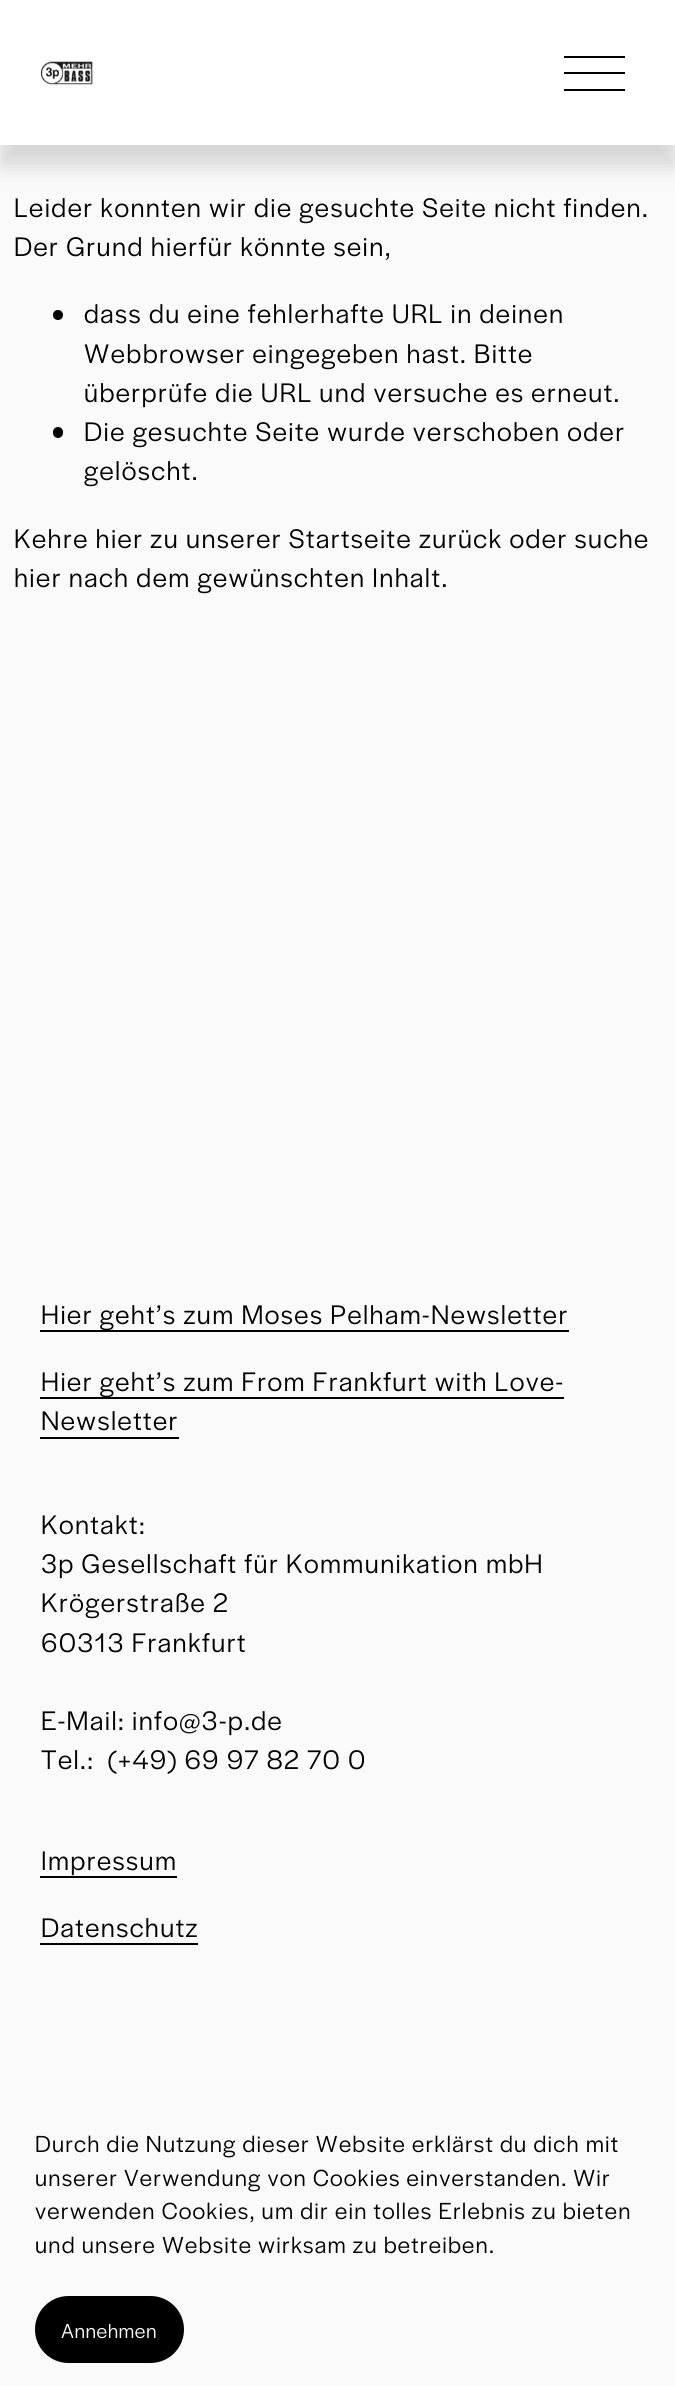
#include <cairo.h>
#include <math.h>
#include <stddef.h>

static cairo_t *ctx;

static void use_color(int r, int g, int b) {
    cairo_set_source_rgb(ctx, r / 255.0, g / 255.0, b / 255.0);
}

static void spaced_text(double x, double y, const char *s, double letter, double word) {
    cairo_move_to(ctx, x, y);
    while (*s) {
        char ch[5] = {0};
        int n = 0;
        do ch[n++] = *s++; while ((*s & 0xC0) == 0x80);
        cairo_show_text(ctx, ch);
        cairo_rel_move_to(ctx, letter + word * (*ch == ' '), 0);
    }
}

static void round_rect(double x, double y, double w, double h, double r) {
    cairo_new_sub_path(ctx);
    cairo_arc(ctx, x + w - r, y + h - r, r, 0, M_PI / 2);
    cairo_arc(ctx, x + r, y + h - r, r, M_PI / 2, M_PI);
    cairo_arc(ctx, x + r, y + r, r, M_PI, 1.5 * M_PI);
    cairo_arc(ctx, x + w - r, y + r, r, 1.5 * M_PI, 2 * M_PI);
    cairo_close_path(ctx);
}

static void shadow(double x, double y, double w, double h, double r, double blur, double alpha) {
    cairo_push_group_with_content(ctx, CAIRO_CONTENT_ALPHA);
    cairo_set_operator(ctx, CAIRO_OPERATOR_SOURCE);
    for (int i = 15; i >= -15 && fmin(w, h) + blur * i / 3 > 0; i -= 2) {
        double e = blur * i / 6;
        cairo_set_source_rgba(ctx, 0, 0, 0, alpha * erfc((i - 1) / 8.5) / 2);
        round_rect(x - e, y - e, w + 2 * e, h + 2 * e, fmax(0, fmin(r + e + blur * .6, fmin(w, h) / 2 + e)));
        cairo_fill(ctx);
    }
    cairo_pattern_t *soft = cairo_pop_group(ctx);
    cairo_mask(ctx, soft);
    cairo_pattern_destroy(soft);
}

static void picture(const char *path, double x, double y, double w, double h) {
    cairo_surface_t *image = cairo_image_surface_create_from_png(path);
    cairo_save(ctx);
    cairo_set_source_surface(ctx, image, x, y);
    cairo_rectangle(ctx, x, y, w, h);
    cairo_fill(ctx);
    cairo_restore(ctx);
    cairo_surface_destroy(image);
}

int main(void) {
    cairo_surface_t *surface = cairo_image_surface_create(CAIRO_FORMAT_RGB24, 675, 2386);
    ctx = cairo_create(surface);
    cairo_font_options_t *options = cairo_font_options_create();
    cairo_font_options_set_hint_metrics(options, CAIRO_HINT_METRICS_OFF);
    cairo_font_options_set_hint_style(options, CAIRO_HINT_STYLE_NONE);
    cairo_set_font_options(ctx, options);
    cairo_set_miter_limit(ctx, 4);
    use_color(250, 250, 250);
    cairo_paint(ctx);
    use_color(213, 213, 213);
    shadow(0, 21, 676, 145, 0, 10.5, 1);
    use_color(255, 255, 255);
    cairo_rectangle(ctx, 0, 0, 675, 145);
    cairo_fill(ctx);
    picture("img1.png", 40, 61, 53, 24);
    use_color(0, 0, 0);
    cairo_rectangle(ctx, 564, 56, 61, 2);
    cairo_fill(ctx);
    cairo_rectangle(ctx, 564, 72, 61, 2);
    cairo_fill(ctx);
    cairo_rectangle(ctx, 564, 89, 61, 2);
    cairo_fill(ctx);
    cairo_select_font_face(ctx, "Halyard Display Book", CAIRO_FONT_SLANT_NORMAL, CAIRO_FONT_WEIGHT_NORMAL);
    cairo_set_font_size(ctx, 28);
    spaced_text(14, 217, "Leider konnten wir die gesuchte Seite nicht finden.", 1.4, 0);
    spaced_text(14, 256, "Der Grund hierfür könnte sein,", 1.4, 0);
    cairo_new_path(ctx);
    cairo_arc(ctx, 58, 315, 5, 0, 2 * M_PI);
    cairo_fill(ctx);
    spaced_text(84, 323, "dass du eine fehlerhafte URL in deinen", 1.4, 0);
    spaced_text(84, 363, "Webbrowser eingegeben hast. Bitte", 1.4, 0);
    spaced_text(84, 402, "überprüfe die URL und versuche es erneut.", 1.4, 0);
    round_rect(53, 427, 10, 11, 5);
    cairo_fill(ctx);
    spaced_text(84, 441, "Die gesuchte Seite wurde verschoben oder", 1.4, 0);
    spaced_text(84, 480, "gelöscht.", 1.4, 0);
    spaced_text(14, 548, "Kehre hier zu unserer Startseite zurück oder suche", 1.4, 0);
    spaced_text(14, 587, "hier nach dem gewünschten Inhalt.", 1.4, 0);
    cairo_rectangle(ctx, 40, 1330, 529, 2);
    cairo_fill(ctx);
    spaced_text(41, 1324, "Hier geht’s zum Moses Pelham-Newsletter", 1.4, 0);
    cairo_rectangle(ctx, 40, 1397, 524, 2);
    cairo_fill(ctx);
    spaced_text(41, 1391, "Hier geht’s zum From Frankfurt with Love-", 1.4, 0);
    spaced_text(41, 1430, "Newsletter", 1.4, 0);
    cairo_rectangle(ctx, 40, 1437, 139, 2);
    cairo_fill(ctx);
    spaced_text(41, 1534, "Kontakt:", 1.4, 0);
    spaced_text(41, 1573, "3p Gesellschaft für Kommunikation mbH", 1.4, 0);
    spaced_text(41, 1612, "Krögerstraße 2", 1.4, 0);
    spaced_text(41, 1652, "60313 Frankfurt", 1.4, 0);
    spaced_text(41, 1730, "E-Mail: info@3-p.de", 1.4, 0);
    spaced_text(41, 1769, "Tel.:  (+49) 69 97 82 70 0", 1.4, 0);
    spaced_text(41, 1870, "Impressum", 1.4, 0);
    cairo_rectangle(ctx, 40, 1876, 137, 2);
    cairo_fill(ctx);
    spaced_text(41, 1937, "Datenschutz", 1.4, 0);
    cairo_rectangle(ctx, 40, 1943, 158, 2);
    cairo_fill(ctx);
    cairo_set_font_size(ctx, 24.25);
    spaced_text(35, 2152, "Durch die Nutzung dieser Website erklärst du dich mit", 1.2, 0);
    spaced_text(35, 2186, "unserer Verwendung von Cookies einverstanden. Wir", 1.2, 0);
    spaced_text(35, 2219, "verwenden Cookies, um dir ein tolles Erlebnis zu bieten", 1.2, 0);
    spaced_text(35, 2253, "und unsere Website wirksam zu betreiben.", 1.2, 0);
    round_rect(35, 2296, 149, 67, 33.5);
    cairo_fill(ctx);
    cairo_set_font_size(ctx, 21);
    use_color(250, 250, 250);
    spaced_text(61, 2338, "Annehmen", 0.5, 0);
    cairo_surface_write_to_png(surface, "result.png");
    cairo_font_options_destroy(options);
    cairo_destroy(ctx);
    cairo_surface_destroy(surface);
    return 0;
}
